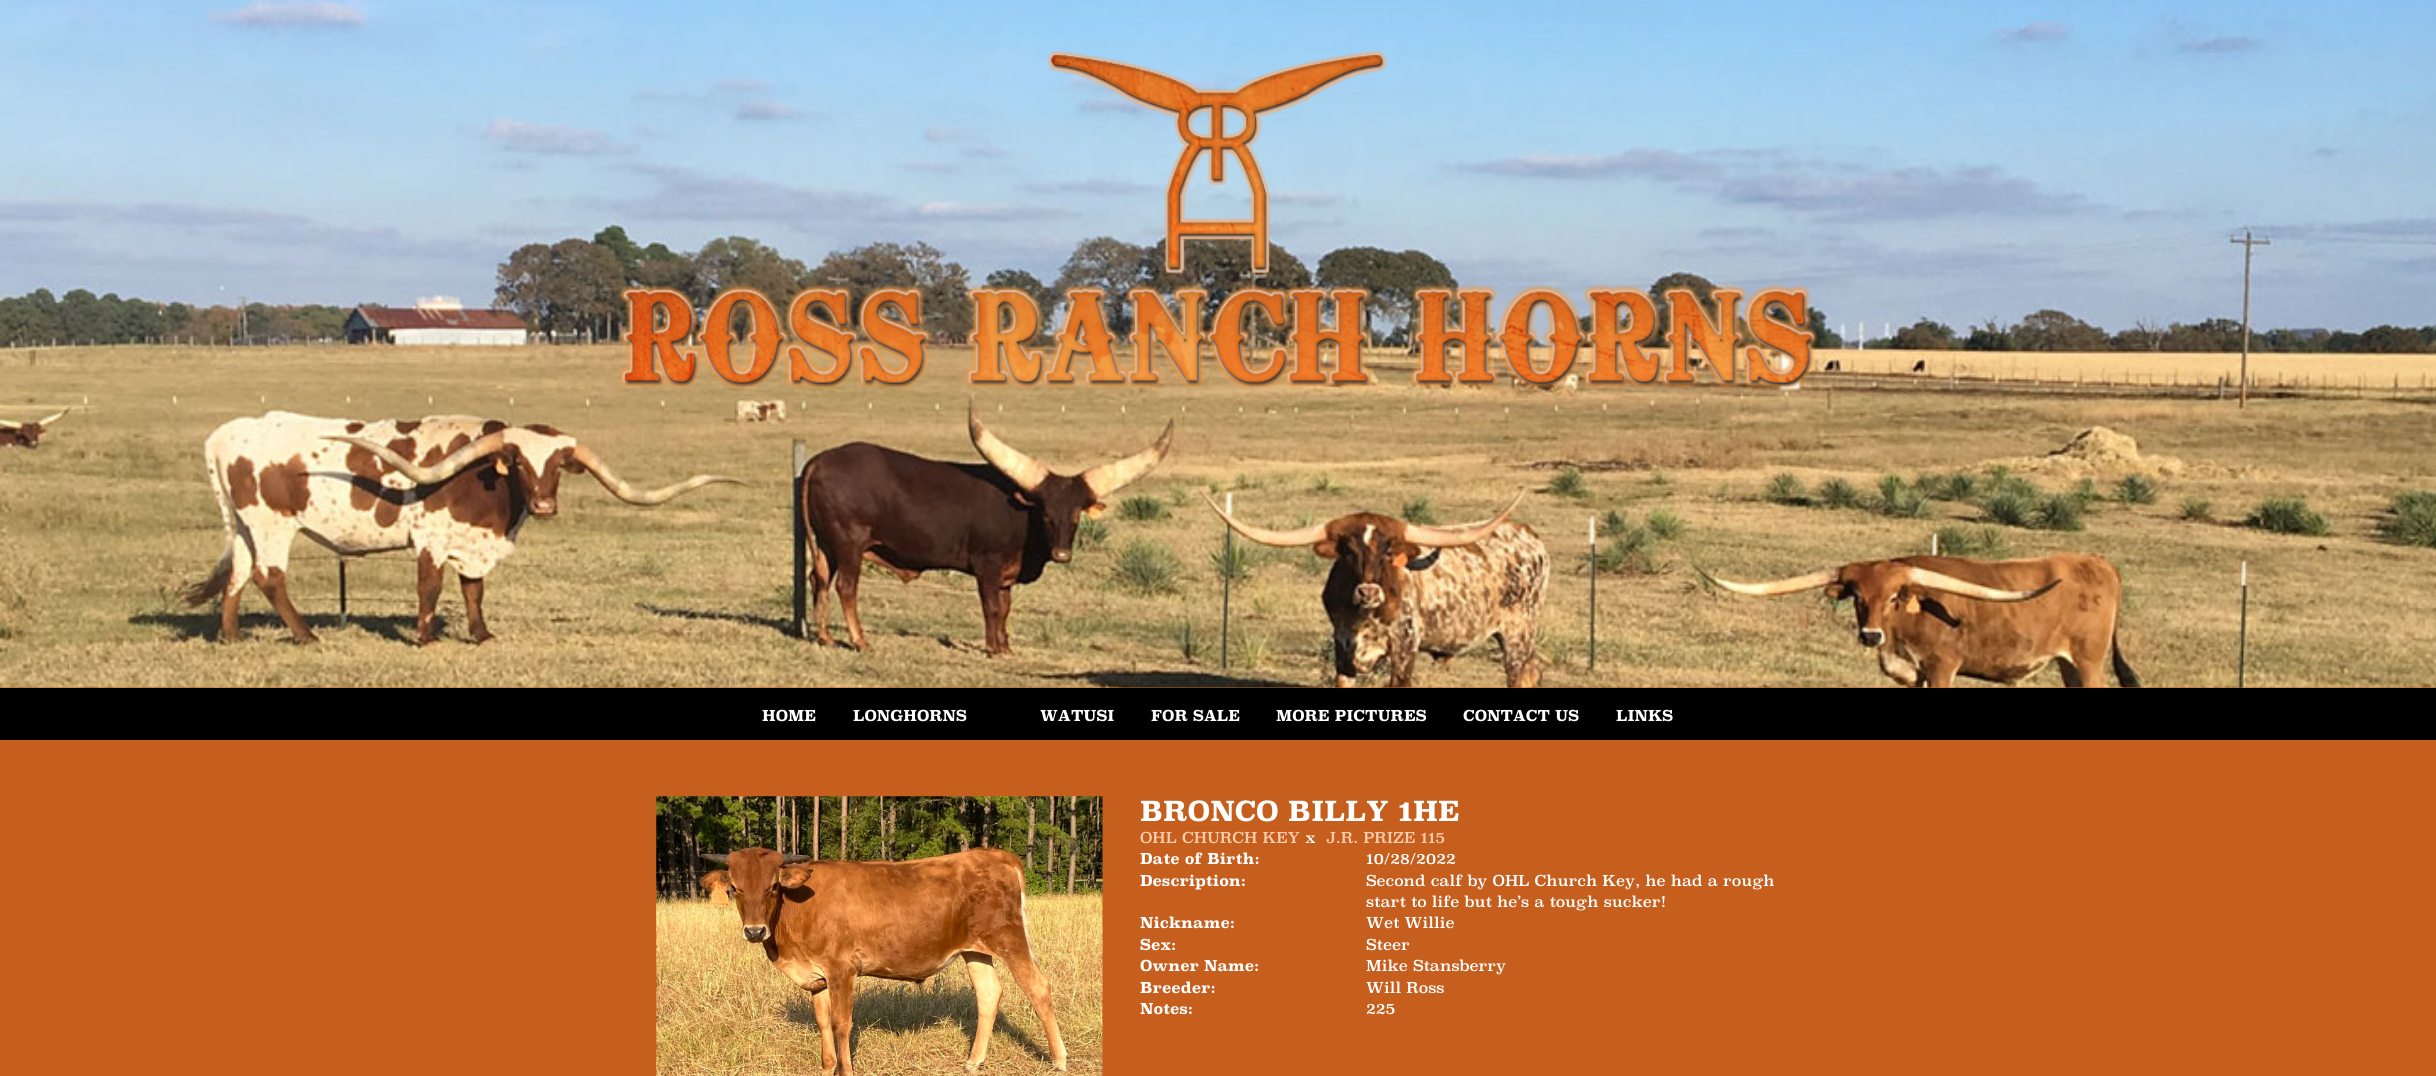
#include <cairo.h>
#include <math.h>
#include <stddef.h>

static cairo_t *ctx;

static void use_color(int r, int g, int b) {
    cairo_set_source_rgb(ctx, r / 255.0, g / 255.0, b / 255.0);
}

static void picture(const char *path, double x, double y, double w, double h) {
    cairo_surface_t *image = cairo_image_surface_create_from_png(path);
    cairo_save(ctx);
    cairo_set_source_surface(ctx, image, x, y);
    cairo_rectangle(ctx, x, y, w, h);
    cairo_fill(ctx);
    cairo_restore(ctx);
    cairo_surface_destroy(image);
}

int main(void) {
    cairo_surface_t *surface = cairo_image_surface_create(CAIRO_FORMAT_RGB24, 2436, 1076);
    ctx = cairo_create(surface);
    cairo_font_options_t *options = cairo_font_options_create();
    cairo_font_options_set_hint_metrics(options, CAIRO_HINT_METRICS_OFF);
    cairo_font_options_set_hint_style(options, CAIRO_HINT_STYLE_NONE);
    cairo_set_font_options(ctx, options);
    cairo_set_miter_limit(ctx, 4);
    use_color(198, 94, 29);
    cairo_paint(ctx);
    picture("img1.png", 0, 0, 2436, 688);
    picture("img2.png", 618, 51, 1201, 338);
    use_color(0, 0, 0);
    cairo_rectangle(ctx, 0, 688, 2436, 52);
    cairo_fill(ctx);
    cairo_select_font_face(ctx, "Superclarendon", CAIRO_FONT_SLANT_NORMAL, CAIRO_FONT_WEIGHT_BOLD);
    cairo_set_font_size(ctx, 15);
    use_color(255, 255, 255);
    cairo_move_to(ctx, 762, 721);
    cairo_show_text(ctx, "HOME");
    cairo_move_to(ctx, 853, 721);
    cairo_show_text(ctx, "LONGHORNS");
    cairo_move_to(ctx, 1040, 721);
    cairo_show_text(ctx, "WATUSI");
    cairo_move_to(ctx, 1151, 721);
    cairo_show_text(ctx, "FOR SALE");
    cairo_move_to(ctx, 1276, 721);
    cairo_show_text(ctx, "MORE PICTURES");
    cairo_move_to(ctx, 1463, 721);
    cairo_show_text(ctx, "CONTACT US");
    cairo_move_to(ctx, 1616, 721);
    cairo_show_text(ctx, "LINKS");
    picture("img3.png", 656, 796, 447, 280);
    cairo_set_font_size(ctx, 27.5);
    cairo_move_to(ctx, 1140, 821);
    cairo_show_text(ctx, "BRONCO BILLY 1HE");
    cairo_select_font_face(ctx, "Superclarendon", CAIRO_FONT_SLANT_NORMAL, CAIRO_FONT_WEIGHT_NORMAL);
    cairo_set_font_size(ctx, 15);
    use_color(255, 204, 174);
    cairo_move_to(ctx, 1140, 843);
    cairo_show_text(ctx, "OHL CHURCH KEY");
    use_color(255, 255, 255);
    cairo_move_to(ctx, 1305, 843);
    cairo_show_text(ctx, "x");
    use_color(255, 204, 174);
    cairo_move_to(ctx, 1326, 843);
    cairo_show_text(ctx, "J.R. PRIZE 115");
    cairo_select_font_face(ctx, "Superclarendon", CAIRO_FONT_SLANT_NORMAL, CAIRO_FONT_WEIGHT_BOLD);
    use_color(255, 255, 255);
    cairo_move_to(ctx, 1140, 864);
    cairo_show_text(ctx, "Date of Birth:");
    cairo_select_font_face(ctx, "Superclarendon", CAIRO_FONT_SLANT_NORMAL, CAIRO_FONT_WEIGHT_NORMAL);
    cairo_move_to(ctx, 1366, 864);
    cairo_show_text(ctx, "10/28/2022");
    cairo_select_font_face(ctx, "Superclarendon", CAIRO_FONT_SLANT_NORMAL, CAIRO_FONT_WEIGHT_BOLD);
    cairo_move_to(ctx, 1140, 886);
    cairo_show_text(ctx, "Description:");
    cairo_select_font_face(ctx, "Superclarendon", CAIRO_FONT_SLANT_NORMAL, CAIRO_FONT_WEIGHT_NORMAL);
    cairo_move_to(ctx, 1366, 886);
    cairo_show_text(ctx, "Second calf by OHL Church Key, he had a rough");
    cairo_move_to(ctx, 1366, 907);
    cairo_show_text(ctx, "start to life but he’s a tough sucker!");
    cairo_select_font_face(ctx, "Superclarendon", CAIRO_FONT_SLANT_NORMAL, CAIRO_FONT_WEIGHT_BOLD);
    cairo_move_to(ctx, 1140, 928);
    cairo_show_text(ctx, "Nickname:");
    cairo_select_font_face(ctx, "Superclarendon", CAIRO_FONT_SLANT_NORMAL, CAIRO_FONT_WEIGHT_NORMAL);
    cairo_move_to(ctx, 1366, 928);
    cairo_show_text(ctx, "Wet Willie");
    cairo_select_font_face(ctx, "Superclarendon", CAIRO_FONT_SLANT_NORMAL, CAIRO_FONT_WEIGHT_BOLD);
    cairo_move_to(ctx, 1140, 950);
    cairo_show_text(ctx, "Sex:");
    cairo_select_font_face(ctx, "Superclarendon", CAIRO_FONT_SLANT_NORMAL, CAIRO_FONT_WEIGHT_NORMAL);
    cairo_move_to(ctx, 1366, 950);
    cairo_show_text(ctx, "Steer");
    cairo_select_font_face(ctx, "Superclarendon", CAIRO_FONT_SLANT_NORMAL, CAIRO_FONT_WEIGHT_BOLD);
    cairo_move_to(ctx, 1140, 971);
    cairo_show_text(ctx, "Owner Name:");
    cairo_select_font_face(ctx, "Superclarendon", CAIRO_FONT_SLANT_NORMAL, CAIRO_FONT_WEIGHT_NORMAL);
    cairo_move_to(ctx, 1366, 971);
    cairo_show_text(ctx, "Mike Stansberry");
    cairo_select_font_face(ctx, "Superclarendon", CAIRO_FONT_SLANT_NORMAL, CAIRO_FONT_WEIGHT_BOLD);
    cairo_move_to(ctx, 1140, 993);
    cairo_show_text(ctx, "Breeder:");
    cairo_select_font_face(ctx, "Superclarendon", CAIRO_FONT_SLANT_NORMAL, CAIRO_FONT_WEIGHT_NORMAL);
    cairo_move_to(ctx, 1366, 993);
    cairo_show_text(ctx, "Will Ross");
    cairo_select_font_face(ctx, "Superclarendon", CAIRO_FONT_SLANT_NORMAL, CAIRO_FONT_WEIGHT_BOLD);
    cairo_move_to(ctx, 1140, 1014);
    cairo_show_text(ctx, "Notes:");
    cairo_select_font_face(ctx, "Superclarendon", CAIRO_FONT_SLANT_NORMAL, CAIRO_FONT_WEIGHT_NORMAL);
    cairo_move_to(ctx, 1366, 1014);
    cairo_show_text(ctx, "225");
    cairo_surface_write_to_png(surface, "result.png");
    cairo_font_options_destroy(options);
    cairo_destroy(ctx);
    cairo_surface_destroy(surface);
    return 0;
}
